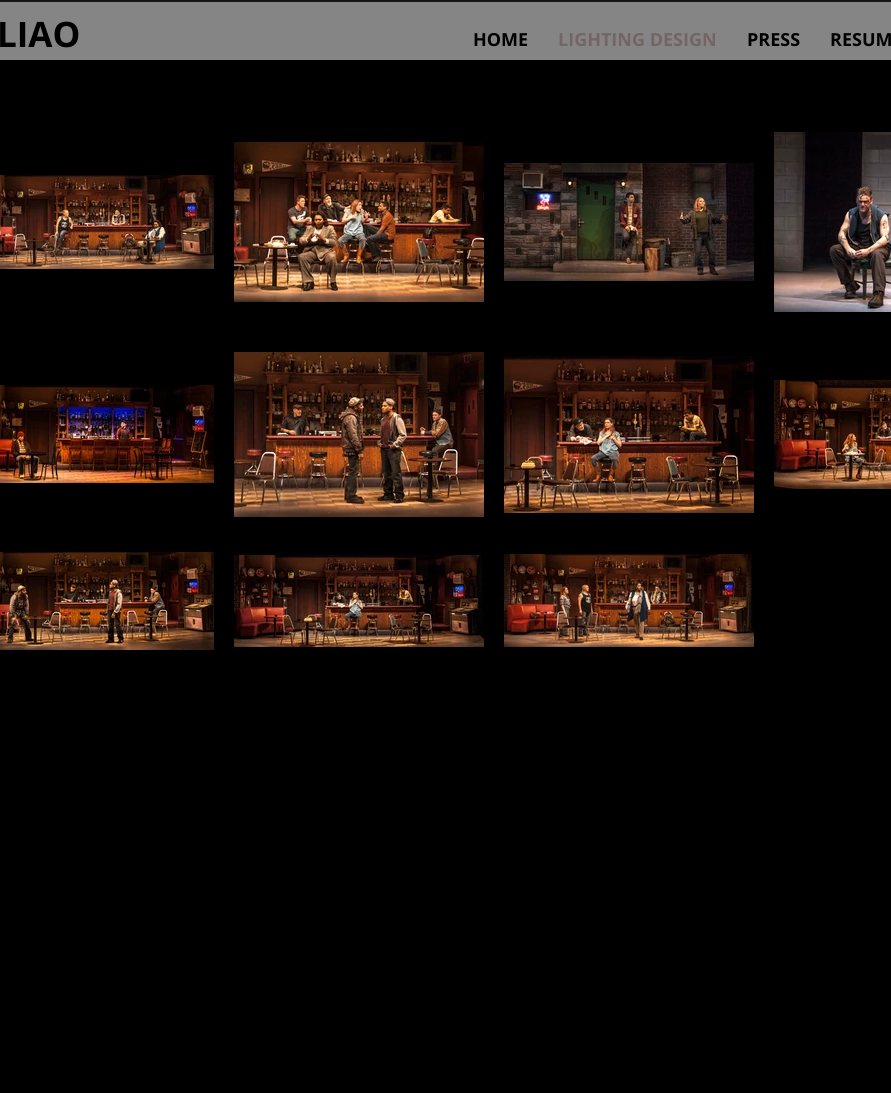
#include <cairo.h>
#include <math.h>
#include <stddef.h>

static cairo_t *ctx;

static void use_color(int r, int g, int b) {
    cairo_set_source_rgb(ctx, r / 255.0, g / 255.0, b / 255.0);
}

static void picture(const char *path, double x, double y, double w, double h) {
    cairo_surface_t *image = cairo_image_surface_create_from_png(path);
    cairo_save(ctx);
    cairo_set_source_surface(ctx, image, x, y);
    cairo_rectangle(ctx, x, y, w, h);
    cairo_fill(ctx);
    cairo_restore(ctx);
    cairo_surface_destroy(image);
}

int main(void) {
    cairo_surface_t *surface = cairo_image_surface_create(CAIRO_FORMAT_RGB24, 891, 1093);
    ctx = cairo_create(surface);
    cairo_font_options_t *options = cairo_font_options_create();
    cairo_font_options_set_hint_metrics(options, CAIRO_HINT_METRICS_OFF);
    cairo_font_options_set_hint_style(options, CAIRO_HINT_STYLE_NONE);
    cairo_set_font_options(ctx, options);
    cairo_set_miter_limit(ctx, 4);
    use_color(0, 0, 0);
    cairo_paint(ctx);
    use_color(21, 21, 21);
    cairo_rectangle(ctx, 0, 0, 891, 2);
    cairo_fill(ctx);
    use_color(133, 133, 133);
    cairo_rectangle(ctx, 0, 2, 891, 58);
    cairo_fill(ctx);
    cairo_select_font_face(ctx, "Open Sans", CAIRO_FONT_SLANT_NORMAL, CAIRO_FONT_WEIGHT_BOLD);
    cairo_set_font_size(ctx, 35);
    use_color(0, 0, 0);
    cairo_move_to(ctx, -3, 47);
    cairo_show_text(ctx, "LIAO");
    cairo_set_font_size(ctx, 18);
    cairo_move_to(ctx, 473, 46);
    cairo_show_text(ctx, "HOME");
    use_color(117, 100, 100);
    cairo_move_to(ctx, 558, 46);
    cairo_show_text(ctx, "LIGHTING DESIGN");
    use_color(0, 0, 0);
    cairo_move_to(ctx, 747, 46);
    cairo_show_text(ctx, "PRESS");
    cairo_move_to(ctx, 830, 46);
    cairo_show_text(ctx, "RESUM");
    picture("img1.png", 0, 175, 214, 94);
    picture("img2.png", 234, 142, 250, 160);
    picture("img3.png", 504, 163, 250, 118);
    picture("img4.png", 774, 132, 117, 180);
    picture("img5.png", 0, 385, 214, 98);
    picture("img6.png", 234, 352, 250, 165);
    picture("img7.png", 504, 356, 250, 157);
    picture("img8.png", 774, 380, 117, 109);
    picture("img9.png", 0, 552, 214, 98);
    picture("img10.png", 234, 555, 250, 92);
    picture("img11.png", 504, 554, 250, 93);
    cairo_surface_write_to_png(surface, "result.png");
    cairo_font_options_destroy(options);
    cairo_destroy(ctx);
    cairo_surface_destroy(surface);
    return 0;
}
